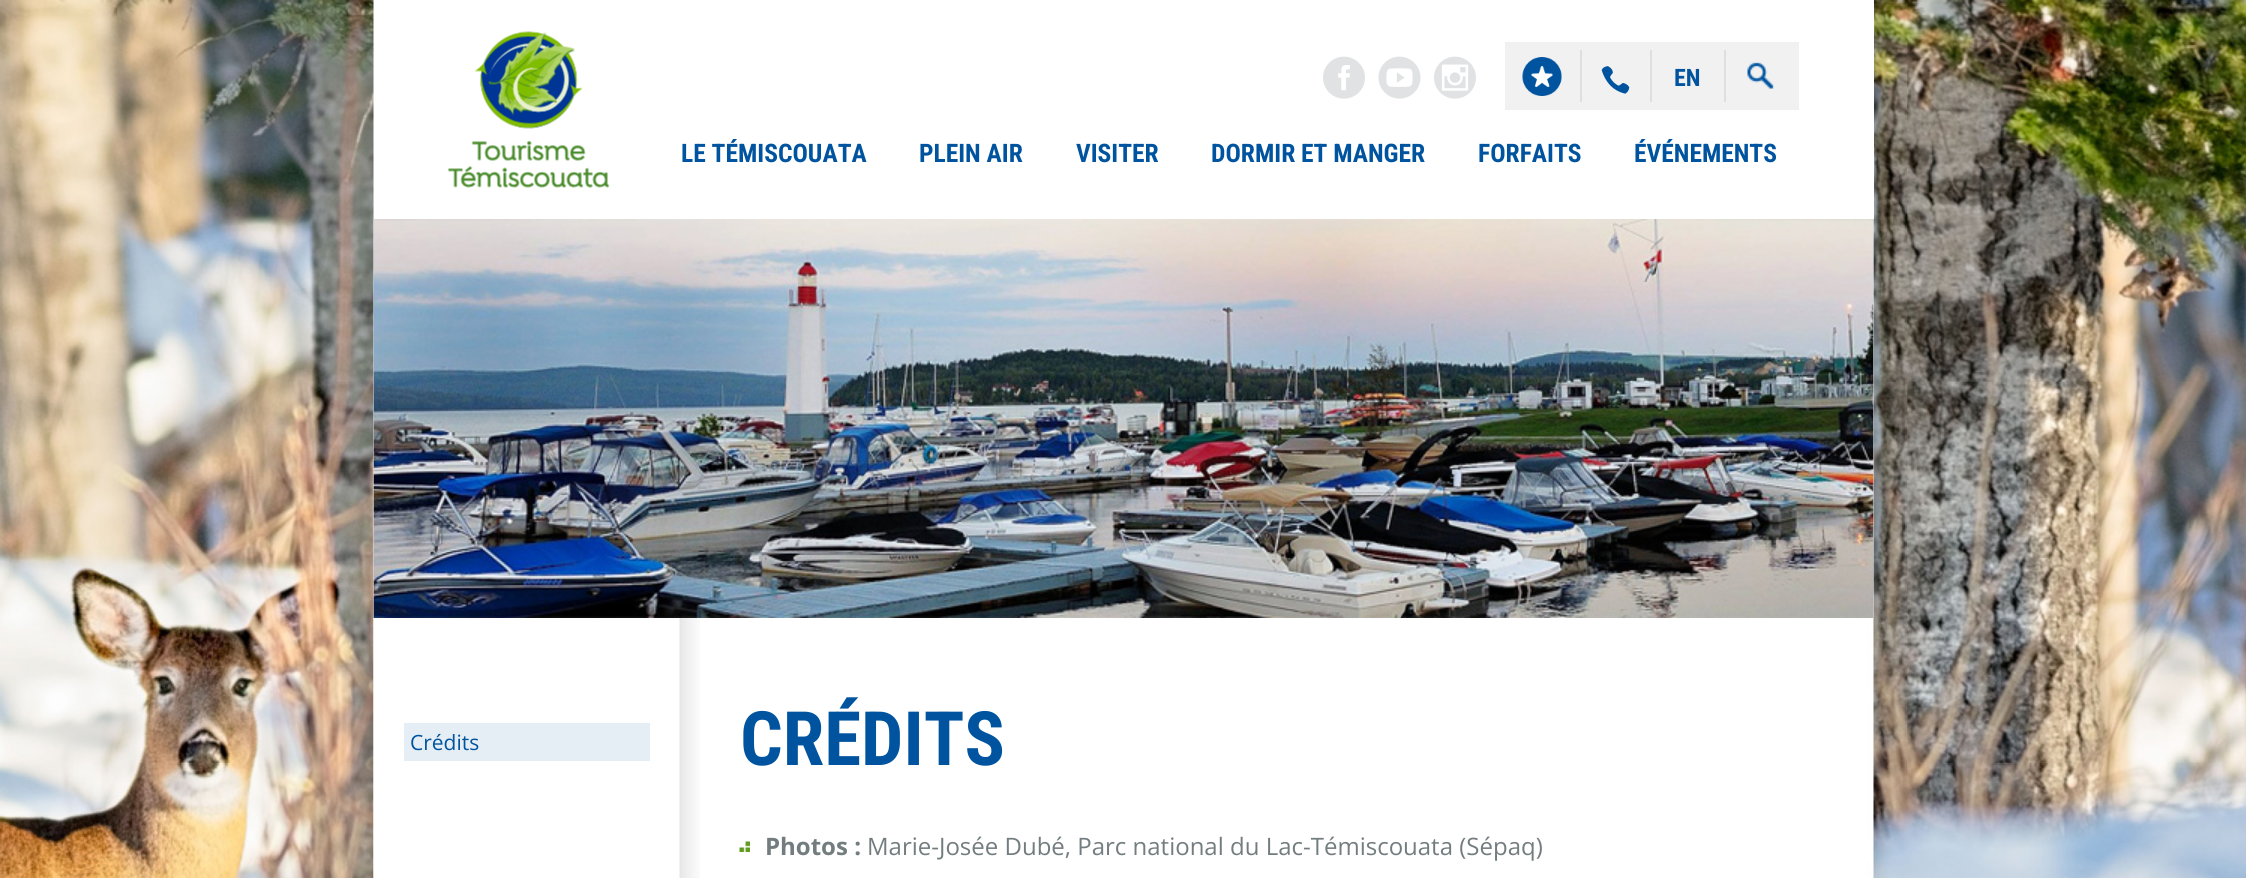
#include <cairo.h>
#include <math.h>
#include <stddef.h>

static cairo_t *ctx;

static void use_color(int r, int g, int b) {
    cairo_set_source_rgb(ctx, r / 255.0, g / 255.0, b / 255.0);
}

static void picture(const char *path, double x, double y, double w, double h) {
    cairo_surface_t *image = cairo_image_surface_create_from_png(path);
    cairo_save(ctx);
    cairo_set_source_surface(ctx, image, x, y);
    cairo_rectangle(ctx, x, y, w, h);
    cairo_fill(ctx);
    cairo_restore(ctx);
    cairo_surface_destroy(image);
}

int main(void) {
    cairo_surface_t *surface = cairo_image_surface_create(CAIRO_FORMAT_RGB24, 2246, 878);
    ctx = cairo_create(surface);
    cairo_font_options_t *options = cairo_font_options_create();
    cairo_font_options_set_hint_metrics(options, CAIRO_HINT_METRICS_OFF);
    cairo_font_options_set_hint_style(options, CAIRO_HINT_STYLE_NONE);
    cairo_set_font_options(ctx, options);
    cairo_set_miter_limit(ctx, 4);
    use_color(255, 255, 255);
    cairo_paint(ctx);
    picture("img1.png", 0, 0, 2246, 878);
    use_color(255, 255, 255);
    cairo_rectangle(ctx, 374, 0, 1500, 219);
    cairo_fill(ctx);
    picture("img2.png", 448, 31, 162, 157);
    picture("img3.png", 1323, 56, 42, 43);
    picture("img4.png", 1378, 56, 43, 43);
    picture("img5.png", 1434, 56, 42, 43);
    use_color(241, 241, 241);
    cairo_rectangle(ctx, 1505, 42, 294, 68);
    cairo_fill(ctx);
    picture("img6.png", 1522, 57, 40, 39);
    use_color(223, 223, 223);
    cairo_rectangle(ctx, 1580, 50, 2, 52);
    cairo_fill(ctx);
    picture("img7.png", 1601, 66, 29, 28);
    cairo_rectangle(ctx, 1650, 50, 2, 52);
    cairo_fill(ctx);
    cairo_select_font_face(ctx, "Roboto Condensed", CAIRO_FONT_SLANT_NORMAL, CAIRO_FONT_WEIGHT_BOLD);
    cairo_set_font_size(ctx, 24);
    use_color(0, 84, 159);
    cairo_move_to(ctx, 1674, 86);
    cairo_show_text(ctx, "EN");
    use_color(223, 223, 223);
    cairo_rectangle(ctx, 1724, 50, 2, 52);
    cairo_fill(ctx);
    picture("img8.png", 1747, 62, 27, 27);
    cairo_set_font_size(ctx, 25.5);
    use_color(0, 84, 159);
    cairo_move_to(ctx, 681, 162);
    cairo_show_text(ctx, "LE TÉMISCOUATA");
    cairo_move_to(ctx, 919, 162);
    cairo_show_text(ctx, "PLEIN AIR");
    cairo_move_to(ctx, 1076, 162);
    cairo_show_text(ctx, "VISITER");
    cairo_move_to(ctx, 1211, 162);
    cairo_show_text(ctx, "DORMIR ET MANGER");
    cairo_move_to(ctx, 1478, 162);
    cairo_show_text(ctx, "FORFAITS");
    cairo_move_to(ctx, 1634, 162);
    cairo_show_text(ctx, "ÉVÉNEMENTS");
    picture("img9.png", 373, 219, 1501, 399);
    picture("img10.png", 373, 618, 327, 260);
    use_color(229, 238, 245);
    cairo_rectangle(ctx, 404, 723, 246, 38);
    cairo_fill(ctx);
    cairo_select_font_face(ctx, "Open Sans", CAIRO_FONT_SLANT_NORMAL, CAIRO_FONT_WEIGHT_NORMAL);
    cairo_set_font_size(ctx, 21);
    use_color(0, 84, 159);
    cairo_move_to(ctx, 410, 750);
    cairo_show_text(ctx, "Crédits");
    cairo_select_font_face(ctx, "Roboto Condensed", CAIRO_FONT_SLANT_NORMAL, CAIRO_FONT_WEIGHT_BOLD);
    cairo_set_font_size(ctx, 75);
    cairo_move_to(ctx, 740, 765);
    cairo_show_text(ctx, "CRÉDITS");
    picture("img11.png", 739, 841, 11, 11);
    cairo_select_font_face(ctx, "Open Sans", CAIRO_FONT_SLANT_NORMAL, CAIRO_FONT_WEIGHT_BOLD);
    cairo_set_font_size(ctx, 24);
    use_color(115, 125, 128);
    cairo_move_to(ctx, 765, 855);
    cairo_show_text(ctx, "Photos :");
    cairo_select_font_face(ctx, "Open Sans", CAIRO_FONT_SLANT_NORMAL, CAIRO_FONT_WEIGHT_NORMAL);
    cairo_move_to(ctx, 867, 855);
    cairo_show_text(ctx, "Marie-Josée Dubé, Parc national du Lac-Témiscouata (Sépaq)");
    cairo_surface_write_to_png(surface, "result.png");
    cairo_font_options_destroy(options);
    cairo_destroy(ctx);
    cairo_surface_destroy(surface);
    return 0;
}
